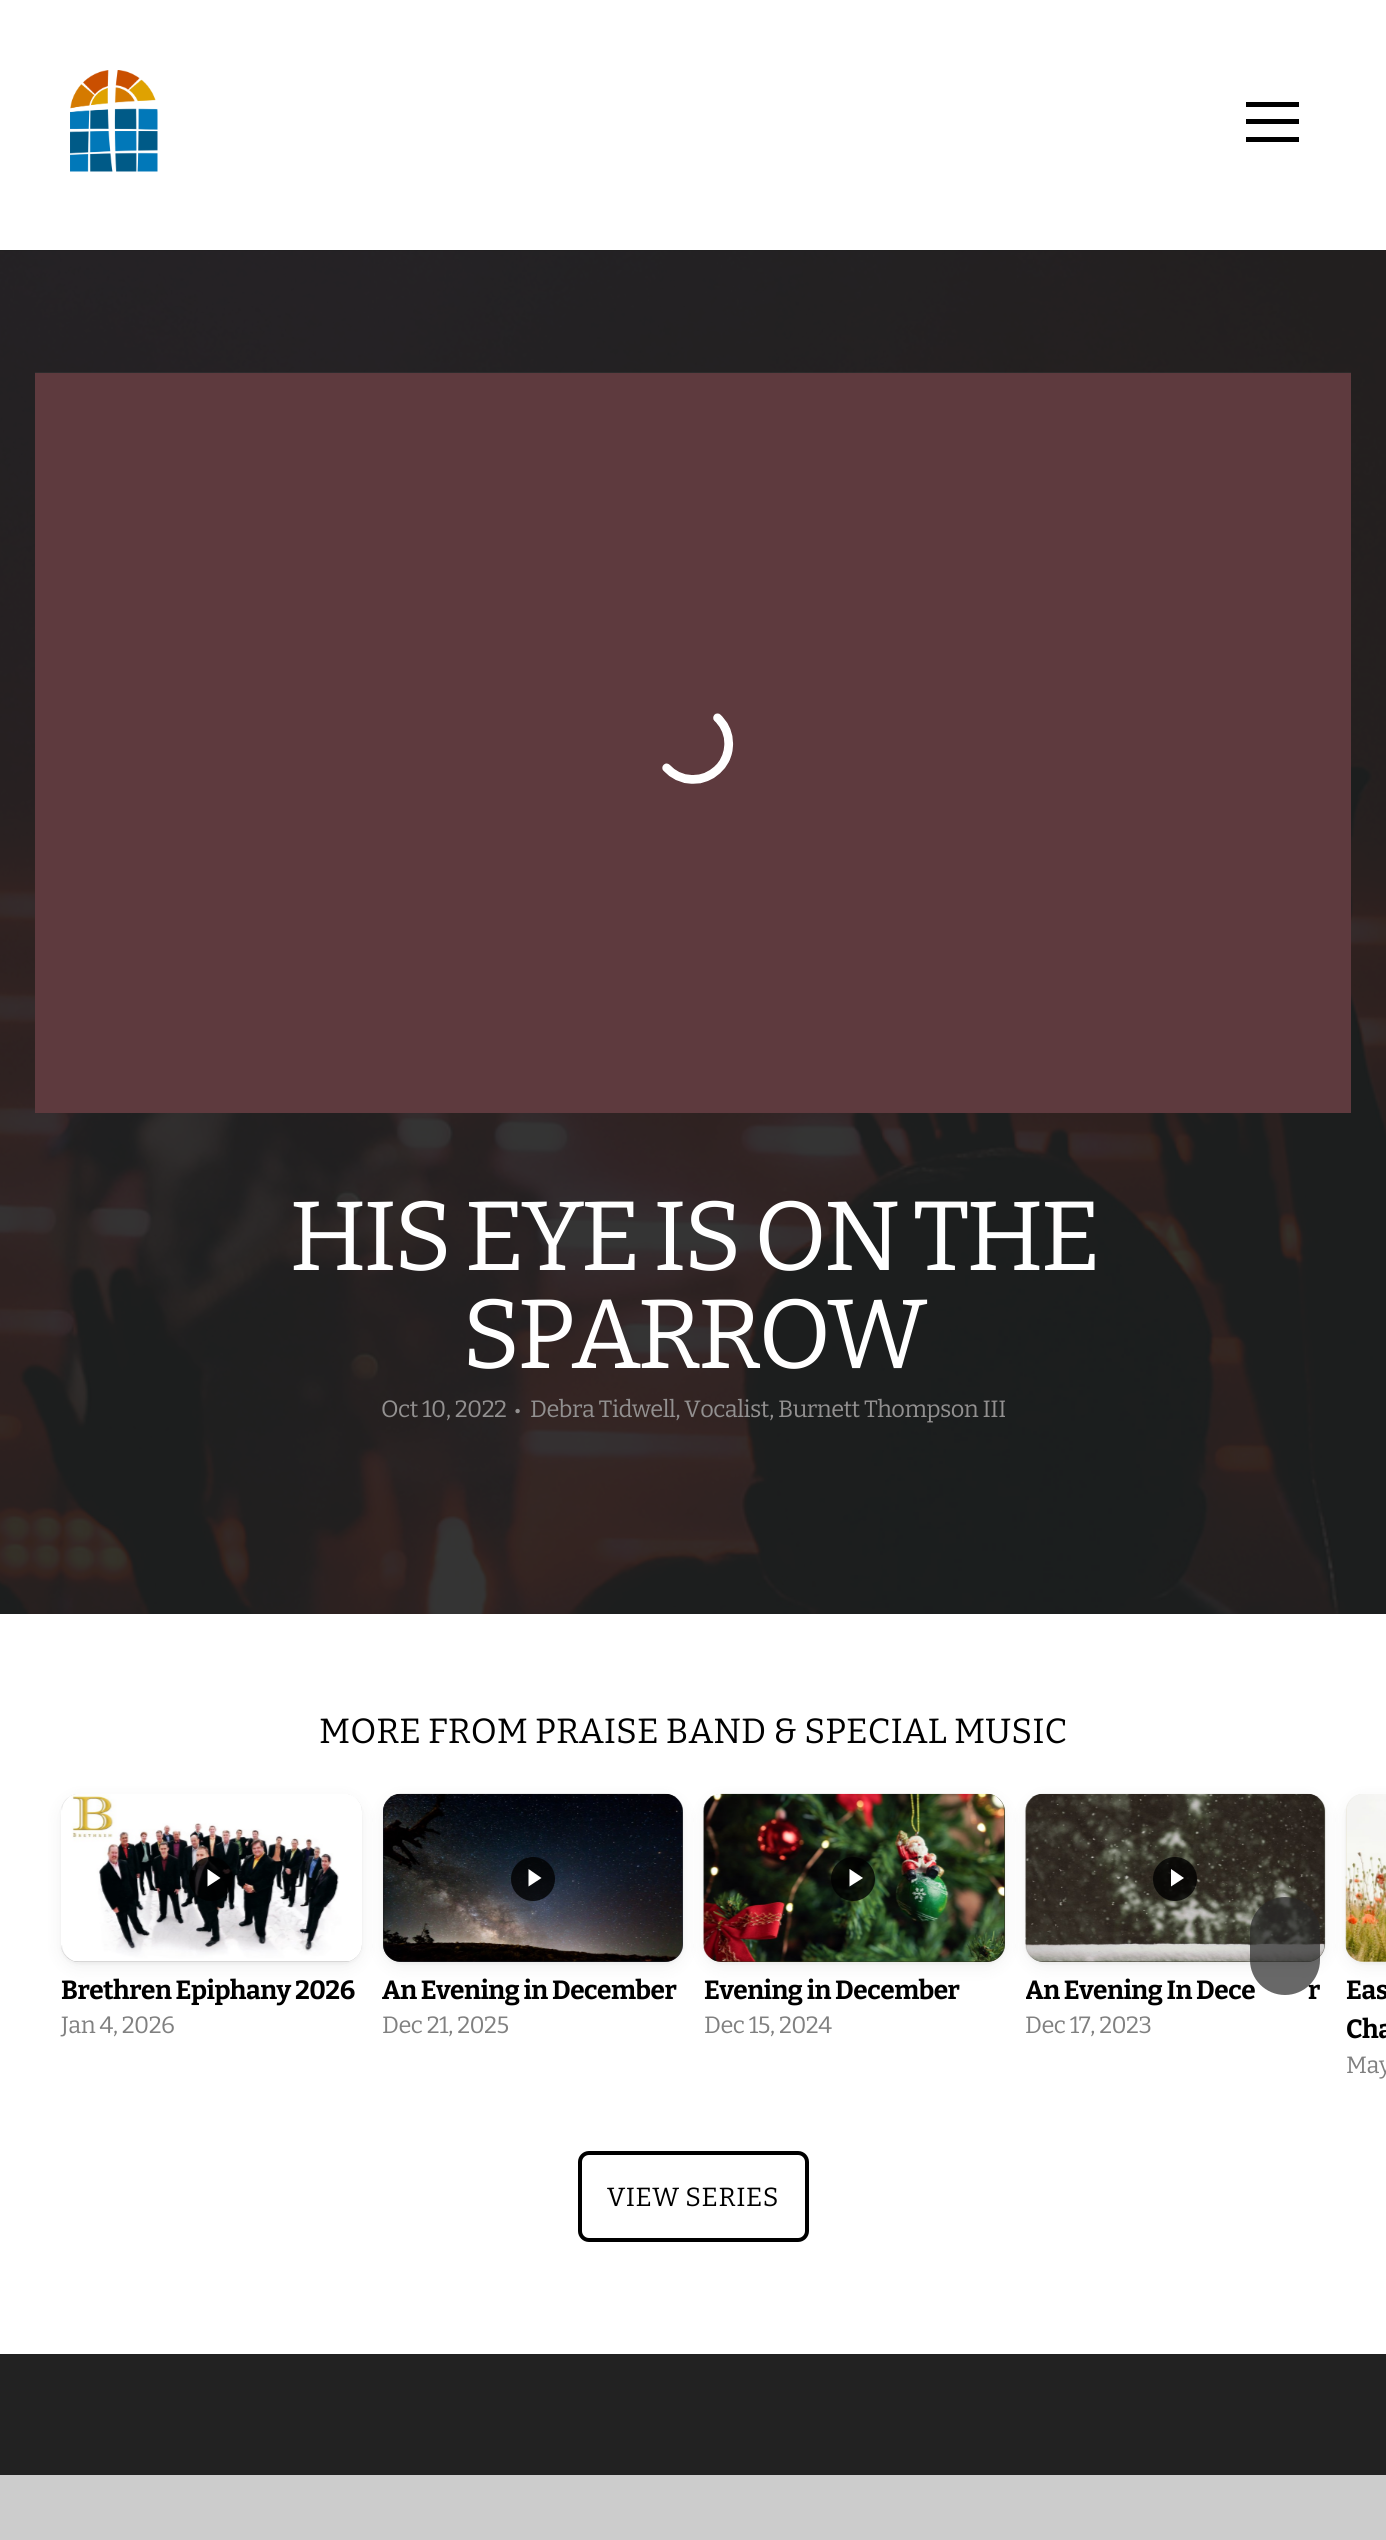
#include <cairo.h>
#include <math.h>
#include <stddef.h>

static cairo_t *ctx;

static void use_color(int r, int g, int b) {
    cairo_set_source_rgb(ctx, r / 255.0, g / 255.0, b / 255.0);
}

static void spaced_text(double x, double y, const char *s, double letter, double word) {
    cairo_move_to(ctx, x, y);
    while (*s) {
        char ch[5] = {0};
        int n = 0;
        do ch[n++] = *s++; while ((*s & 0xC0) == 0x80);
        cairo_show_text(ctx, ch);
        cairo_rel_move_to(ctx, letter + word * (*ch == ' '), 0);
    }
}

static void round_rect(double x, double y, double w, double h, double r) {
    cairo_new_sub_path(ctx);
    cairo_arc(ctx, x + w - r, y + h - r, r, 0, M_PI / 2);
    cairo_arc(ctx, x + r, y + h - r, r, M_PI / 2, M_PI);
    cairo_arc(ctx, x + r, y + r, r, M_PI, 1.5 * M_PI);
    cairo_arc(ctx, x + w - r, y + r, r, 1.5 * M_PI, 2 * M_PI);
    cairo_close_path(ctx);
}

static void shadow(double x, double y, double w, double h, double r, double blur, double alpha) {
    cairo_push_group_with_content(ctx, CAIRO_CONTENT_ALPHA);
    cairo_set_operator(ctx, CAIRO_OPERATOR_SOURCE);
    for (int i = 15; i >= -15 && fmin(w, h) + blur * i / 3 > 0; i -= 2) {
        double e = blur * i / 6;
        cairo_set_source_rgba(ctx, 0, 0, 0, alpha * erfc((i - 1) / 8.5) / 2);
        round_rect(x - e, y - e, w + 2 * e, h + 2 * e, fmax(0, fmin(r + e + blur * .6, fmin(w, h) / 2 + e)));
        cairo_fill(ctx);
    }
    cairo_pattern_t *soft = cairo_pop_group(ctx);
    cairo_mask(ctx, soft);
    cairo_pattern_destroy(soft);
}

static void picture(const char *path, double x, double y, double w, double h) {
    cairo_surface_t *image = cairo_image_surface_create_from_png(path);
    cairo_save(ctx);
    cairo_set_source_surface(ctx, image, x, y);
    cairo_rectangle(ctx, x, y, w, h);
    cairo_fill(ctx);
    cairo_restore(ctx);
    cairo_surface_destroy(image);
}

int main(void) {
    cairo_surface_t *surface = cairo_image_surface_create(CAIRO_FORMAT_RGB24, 1386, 2540);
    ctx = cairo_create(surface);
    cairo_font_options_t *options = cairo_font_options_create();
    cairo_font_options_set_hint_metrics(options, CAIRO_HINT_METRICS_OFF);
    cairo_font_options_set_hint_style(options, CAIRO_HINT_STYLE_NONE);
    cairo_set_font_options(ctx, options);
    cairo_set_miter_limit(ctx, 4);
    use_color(204, 204, 204);
    cairo_paint(ctx);
    use_color(255, 255, 255);
    cairo_rectangle(ctx, 0, 0, 1386, 250);
    cairo_fill(ctx);
    picture("img1.png", 70, 70, 88, 102);
    use_color(0, 0, 0);
    cairo_rectangle(ctx, 1246, 102, 53, 5);
    cairo_fill(ctx);
    cairo_rectangle(ctx, 1246, 119, 53, 5);
    cairo_fill(ctx);
    cairo_rectangle(ctx, 1246, 137, 53, 5);
    cairo_fill(ctx);
    use_color(30, 30, 30);
    cairo_rectangle(ctx, 0, 250, 1386, 1);
    cairo_fill(ctx);
    picture("img2.png", 0, 250, 1386, 1364);
    picture("img3.png", 35, 372, 1316, 741);
    cairo_select_font_face(ctx, "Bitter", CAIRO_FONT_SLANT_NORMAL, CAIRO_FONT_WEIGHT_NORMAL);
    cairo_set_font_size(ctx, 98);
    use_color(255, 255, 255);
    spaced_text(289, 1270, "HIS EYE IS ON THE", -3.9, 0);
    spaced_text(462, 1368, "SPARROW", -3.9, 0);
    cairo_set_font_size(ctx, 23.6);
    use_color(146, 144, 144);
    spaced_text(381, 1417, "Oct 10, 2022", -0.5, 0);
    cairo_set_font_size(ctx, 19);
    spaced_text(514, 1417, "•", -0.5, 0);
    cairo_save(ctx);
    cairo_rectangle(ctx, 382, 1395, 623, 31);
    cairo_clip(ctx);
    cairo_set_font_size(ctx, 23.6);
    spaced_text(530, 1417, "Debra Tidwell, Vocalist, Burnett Thompson III", -0.5, 0);
    cairo_restore(ctx);
    use_color(255, 255, 255);
    cairo_rectangle(ctx, 0, 1614, 1386, 740);
    cairo_fill(ctx);
    cairo_set_font_size(ctx, 35);
    use_color(0, 0, 0);
    cairo_move_to(ctx, 319, 1743);
    cairo_show_text(ctx, "MORE FROM PRAISE BAND & SPECIAL MUSIC");
    use_color(0, 0, 0);
    shadow(1026, 1796, 299, 168, 18, 2, 0.04);
    shadow(61, 1796, 301, 168, 18, 2, 0.04);
    shadow(61, 1799, 301, 168, 18, 9, 0.06);
    use_color(164, 163, 163);
    round_rect(61, 1794, 301, 168, 18);
    cairo_fill(ctx);
    picture("img4.png", 61, 1794, 301, 168);
    use_color(0, 0, 0);
    shadow(383, 1799, 300, 168, 18, 9, 0.06);
    shadow(704, 1796, 301, 168, 18, 2, 0.04);
    shadow(383, 1796, 300, 168, 18, 2, 0.04);
    use_color(43, 45, 52);
    round_rect(383, 1794, 300, 168, 18);
    cairo_fill(ctx);
    picture("img5.png", 383, 1793, 300, 169);
    use_color(0, 0, 0);
    shadow(704, 1799, 301, 168, 18, 9, 0.06);
    use_color(53, 58, 35);
    round_rect(704, 1794, 301, 168, 18);
    cairo_fill(ctx);
    picture("img6.png", 703, 1793, 302, 169);
    use_color(0, 0, 0);
    shadow(1026, 1799, 299, 168, 18, 9, 0.06);
    use_color(80, 79, 67);
    round_rect(1026, 1794, 299, 168, 18);
    cairo_fill(ctx);
    picture("img7.png", 1025, 1793, 301, 169);
    cairo_save(ctx);
    cairo_rectangle(ctx, 1026, 1971, 299, 40);
    cairo_clip(ctx);
    cairo_select_font_face(ctx, "Bitter", CAIRO_FONT_SLANT_NORMAL, CAIRO_FONT_WEIGHT_BOLD);
    cairo_set_font_size(ctx, 26.25);
    use_color(0, 0, 0);
    spaced_text(1025, 1999, "An Evening In Dece", -0.5, 0);
    cairo_restore(ctx);
    cairo_select_font_face(ctx, "Bitter", CAIRO_FONT_SLANT_NORMAL, CAIRO_FONT_WEIGHT_BOLD);
    cairo_set_font_size(ctx, 26.25);
    use_color(0, 0, 0);
    spaced_text(1308, 1999, "r", -0.5, 0);
    use_color(0, 0, 0);
    shadow(1346, 1799, 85, 168, 18, 9, 0.06);
    cairo_set_source_rgba(ctx, 0.157, 0.157, 0.157, 0.7);
    round_rect(1250, 1897, 70, 98, 35);
    cairo_fill(ctx);
    cairo_set_source_rgba(ctx, 0, 0, 0, 0.8);
    cairo_arc(ctx, 211, 1879, 22, 0, 2 * M_PI);
    cairo_fill(ctx);
    use_color(255, 255, 255);
    cairo_new_path(ctx);
    cairo_move_to(ctx, 207.5, 1886.5);
    cairo_line_to(ctx, 207.5, 1869);
    cairo_line_to(ctx, 220.5, 1878);
    cairo_close_path(ctx);
    cairo_fill(ctx);
    use_color(0, 0, 0);
    spaced_text(61, 1999, "Brethren Epiphany 2026", -0.5, 0);
    cairo_select_font_face(ctx, "Bitter", CAIRO_FONT_SLANT_NORMAL, CAIRO_FONT_WEIGHT_NORMAL);
    cairo_set_font_size(ctx, 23.6);
    use_color(128, 128, 128);
    spaced_text(61, 2033, "Jan 4, 2026", -0.5, 0);
    cairo_set_source_rgba(ctx, 0, 0, 0, 0.8);
    cairo_new_path(ctx);
    cairo_arc(ctx, 533, 1879, 22, 0, 2 * M_PI);
    cairo_fill(ctx);
    use_color(255, 255, 255);
    cairo_new_path(ctx);
    cairo_move_to(ctx, 528.5, 1886.5);
    cairo_line_to(ctx, 528.5, 1869);
    cairo_line_to(ctx, 541.5, 1878);
    cairo_close_path(ctx);
    cairo_fill(ctx);
    cairo_select_font_face(ctx, "Bitter", CAIRO_FONT_SLANT_NORMAL, CAIRO_FONT_WEIGHT_BOLD);
    cairo_set_font_size(ctx, 26.25);
    use_color(0, 0, 0);
    spaced_text(382, 1999, "An Evening in December", -0.5, 0);
    cairo_select_font_face(ctx, "Bitter", CAIRO_FONT_SLANT_NORMAL, CAIRO_FONT_WEIGHT_NORMAL);
    cairo_set_font_size(ctx, 23.6);
    use_color(128, 128, 128);
    spaced_text(382, 2033, "Dec 21, 2025", -0.5, 0);
    cairo_set_source_rgba(ctx, 0, 0, 0, 0.8);
    cairo_new_path(ctx);
    cairo_arc(ctx, 853, 1879, 22, 0, 2 * M_PI);
    cairo_fill(ctx);
    use_color(255, 255, 255);
    cairo_new_path(ctx);
    cairo_move_to(ctx, 849.5, 1886.5);
    cairo_line_to(ctx, 849.5, 1869);
    cairo_line_to(ctx, 863, 1878);
    cairo_close_path(ctx);
    cairo_fill(ctx);
    cairo_select_font_face(ctx, "Bitter", CAIRO_FONT_SLANT_NORMAL, CAIRO_FONT_WEIGHT_BOLD);
    cairo_set_font_size(ctx, 26.25);
    use_color(0, 0, 0);
    spaced_text(704, 1999, "Evening in December", -0.5, 0);
    cairo_select_font_face(ctx, "Bitter", CAIRO_FONT_SLANT_NORMAL, CAIRO_FONT_WEIGHT_NORMAL);
    cairo_set_font_size(ctx, 23.6);
    use_color(128, 128, 128);
    spaced_text(704, 2033, "Dec 15, 2024", -0.5, 0);
    cairo_set_source_rgba(ctx, 0, 0, 0, 0.8);
    cairo_new_path(ctx);
    cairo_arc(ctx, 1175, 1879, 22, 0, 2 * M_PI);
    cairo_fill(ctx);
    use_color(255, 255, 255);
    cairo_new_path(ctx);
    cairo_move_to(ctx, 1171, 1886.5);
    cairo_line_to(ctx, 1171, 1869);
    cairo_line_to(ctx, 1184, 1878);
    cairo_close_path(ctx);
    cairo_fill(ctx);
    cairo_save(ctx);
    cairo_rectangle(ctx, 1026, 2011, 126, 30);
    cairo_clip(ctx);
    use_color(128, 128, 128);
    spaced_text(1025, 2033, "Dec 17, 2023", -0.5, 0);
    cairo_restore(ctx);
    use_color(0, 0, 0);
    shadow(1346, 1796, 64, 168, 18, 2, 0.04);
    use_color(213, 200, 163);
    cairo_new_path(ctx);
    cairo_move_to(ctx, 1364, 1794);
    cairo_line_to(ctx, 1386, 1794);
    cairo_line_to(ctx, 1386, 1962);
    cairo_line_to(ctx, 1364, 1962);
    cairo_curve_to(ctx, 1354, 1962, 1346, 1954, 1346, 1944);
    cairo_line_to(ctx, 1346, 1812);
    cairo_curve_to(ctx, 1346, 1802, 1354, 1794, 1364, 1794);
    cairo_close_path(ctx);
    cairo_fill(ctx);
    picture("img8.png", 1345, 1794, 41, 168);
    cairo_select_font_face(ctx, "Bitter", CAIRO_FONT_SLANT_NORMAL, CAIRO_FONT_WEIGHT_BOLD);
    cairo_set_font_size(ctx, 26.25);
    use_color(0, 0, 0);
    spaced_text(1346, 1999, "Eas", -0.5, 0);
    spaced_text(1346, 2038, "Cha", -0.5, 0);
    cairo_select_font_face(ctx, "Bitter", CAIRO_FONT_SLANT_NORMAL, CAIRO_FONT_WEIGHT_NORMAL);
    cairo_set_font_size(ctx, 23.6);
    use_color(128, 128, 128);
    spaced_text(1346, 2073, "May", -0.5, 0);
    round_rect(580, 2153, 227, 87, 9);
    use_color(0, 0, 0);
    cairo_set_line_width(ctx, 4);
    cairo_stroke(ctx);
    cairo_set_font_size(ctx, 26.25);
    spaced_text(607, 2206, "VIEW SERIES", 0.5, 0);
    use_color(34, 34, 34);
    cairo_rectangle(ctx, 0, 2354, 1386, 121);
    cairo_fill(ctx);
    cairo_surface_write_to_png(surface, "result.png");
    cairo_font_options_destroy(options);
    cairo_destroy(ctx);
    cairo_surface_destroy(surface);
    return 0;
}
